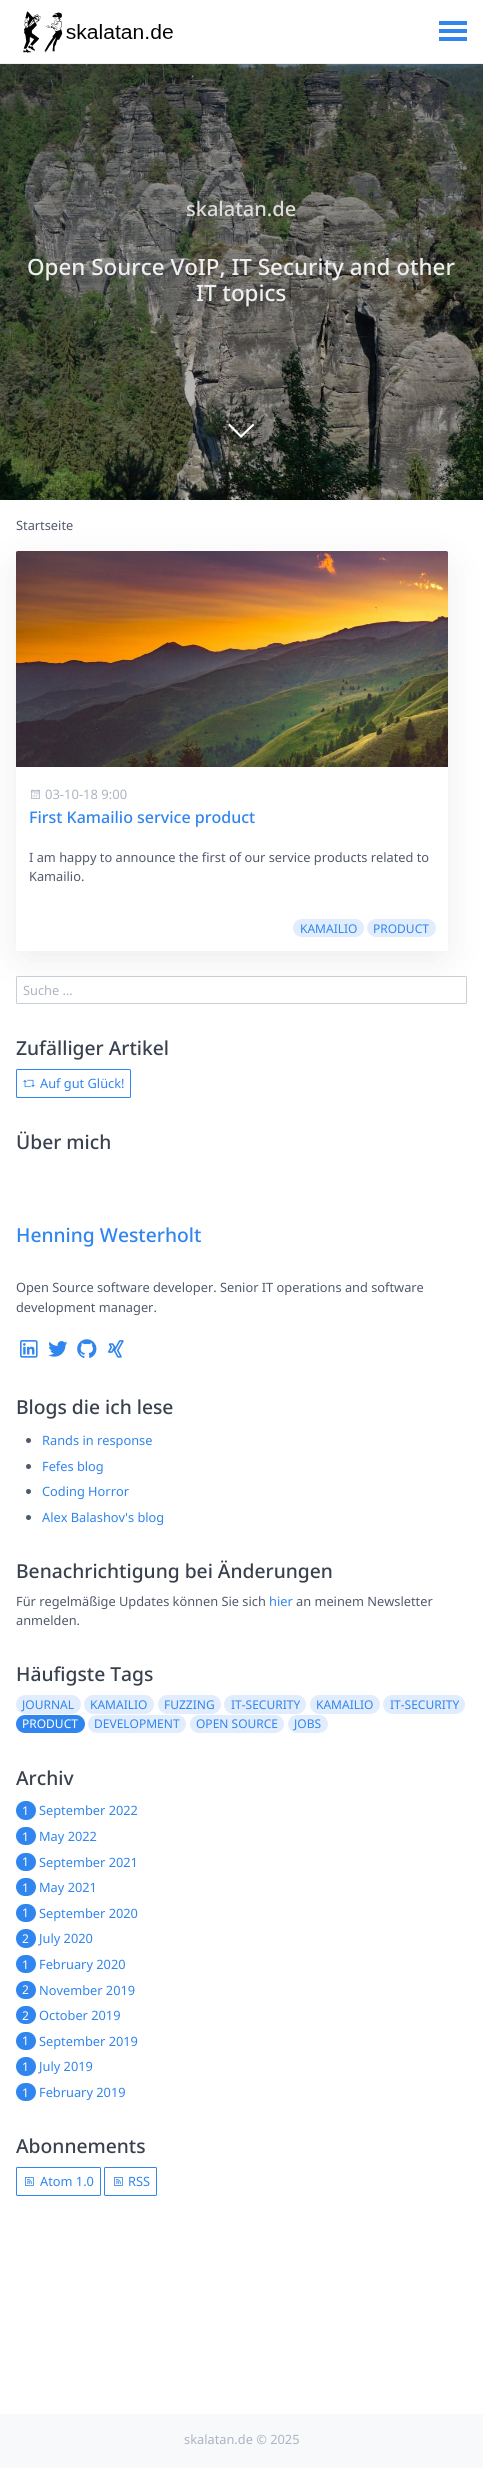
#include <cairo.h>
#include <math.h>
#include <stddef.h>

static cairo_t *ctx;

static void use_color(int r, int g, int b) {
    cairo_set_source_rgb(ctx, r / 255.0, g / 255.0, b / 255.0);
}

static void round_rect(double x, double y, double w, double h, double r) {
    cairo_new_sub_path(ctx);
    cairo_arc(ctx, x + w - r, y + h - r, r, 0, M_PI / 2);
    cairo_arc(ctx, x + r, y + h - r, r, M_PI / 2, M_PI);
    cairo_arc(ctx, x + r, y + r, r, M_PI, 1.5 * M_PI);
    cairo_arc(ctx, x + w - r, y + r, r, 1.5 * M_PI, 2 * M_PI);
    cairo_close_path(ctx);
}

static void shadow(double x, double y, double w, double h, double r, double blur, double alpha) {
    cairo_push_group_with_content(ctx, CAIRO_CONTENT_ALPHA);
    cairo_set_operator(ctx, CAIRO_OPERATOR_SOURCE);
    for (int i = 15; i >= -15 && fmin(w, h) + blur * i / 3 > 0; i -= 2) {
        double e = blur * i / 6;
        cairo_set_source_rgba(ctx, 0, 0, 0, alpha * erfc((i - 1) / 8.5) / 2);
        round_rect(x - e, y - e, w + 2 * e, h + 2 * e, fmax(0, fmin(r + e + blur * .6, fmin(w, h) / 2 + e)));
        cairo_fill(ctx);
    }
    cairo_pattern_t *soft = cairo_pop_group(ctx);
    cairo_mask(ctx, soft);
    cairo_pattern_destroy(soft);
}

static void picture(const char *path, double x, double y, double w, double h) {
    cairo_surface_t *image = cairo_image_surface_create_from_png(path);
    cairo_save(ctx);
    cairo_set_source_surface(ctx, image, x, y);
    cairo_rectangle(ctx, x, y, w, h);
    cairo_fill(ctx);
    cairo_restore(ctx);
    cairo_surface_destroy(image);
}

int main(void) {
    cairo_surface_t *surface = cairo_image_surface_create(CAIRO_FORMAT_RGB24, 483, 2468);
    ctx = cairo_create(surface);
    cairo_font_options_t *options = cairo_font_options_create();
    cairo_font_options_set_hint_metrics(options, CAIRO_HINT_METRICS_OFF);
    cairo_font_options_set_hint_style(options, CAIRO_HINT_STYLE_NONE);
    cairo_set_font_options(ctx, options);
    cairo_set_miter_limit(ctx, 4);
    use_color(255, 255, 255);
    cairo_paint(ctx);
    use_color(238, 240, 243);
    cairo_rectangle(ctx, 0, 63, 483, 1);
    cairo_fill(ctx);
    picture("img1.png", 23, 11, 150, 42);
    use_color(48, 133, 238);
    cairo_rectangle(ctx, 439, 21, 28, 4);
    cairo_fill(ctx);
    cairo_rectangle(ctx, 439, 29, 28, 4);
    cairo_fill(ctx);
    cairo_rectangle(ctx, 439, 37, 28, 4);
    cairo_fill(ctx);
    picture("img2.png", 0, 64, 483, 436);
    cairo_select_font_face(ctx, "Noto Sans Medium", CAIRO_FONT_SLANT_NORMAL, CAIRO_FONT_WEIGHT_NORMAL);
    cairo_set_font_size(ctx, 20);
    use_color(221, 222, 220);
    cairo_move_to(ctx, 186, 216);
    cairo_show_text(ctx, "skalatan.de");
    cairo_set_font_size(ctx, 22.4);
    use_color(238, 239, 238);
    cairo_move_to(ctx, 27, 275);
    cairo_show_text(ctx, "Open Source VoIP, IT Security and other");
    cairo_move_to(ctx, 196, 301);
    cairo_show_text(ctx, "IT topics");
    use_color(255, 255, 255);
    cairo_new_path(ctx);
    cairo_move_to(ctx, 229.5, 423.5);
    cairo_line_to(ctx, 241, 435);
    cairo_line_to(ctx, 253, 423.5);
    cairo_line_to(ctx, 254.5, 425);
    cairo_line_to(ctx, 241, 438);
    cairo_line_to(ctx, 228, 425);
    cairo_close_path(ctx);
    cairo_fill(ctx);
    cairo_select_font_face(ctx, "Noto Sans", CAIRO_FONT_SLANT_NORMAL, CAIRO_FONT_WEIGHT_NORMAL);
    cairo_set_font_size(ctx, 12.8);
    use_color(80, 89, 108);
    cairo_move_to(ctx, 16, 530);
    cairo_show_text(ctx, "Startseite");
    cairo_save(ctx);
    cairo_set_fill_rule(ctx, CAIRO_FILL_RULE_EVEN_ODD);
    cairo_new_path(ctx);
    cairo_move_to(ctx, 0, 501);
    cairo_line_to(ctx, 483, 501);
    cairo_line_to(ctx, 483, 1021);
    cairo_line_to(ctx, 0, 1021);
    cairo_close_path(ctx);
    cairo_move_to(ctx, 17.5, 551);
    cairo_line_to(ctx, 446.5, 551);
    cairo_curve_to(ctx, 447.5, 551, 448, 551.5, 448, 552.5);
    cairo_line_to(ctx, 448, 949.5);
    cairo_curve_to(ctx, 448, 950.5, 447.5, 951, 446.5, 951);
    cairo_line_to(ctx, 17.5, 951);
    cairo_curve_to(ctx, 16.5, 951, 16, 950.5, 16, 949.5);
    cairo_line_to(ctx, 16, 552.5);
    cairo_curve_to(ctx, 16, 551.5, 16.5, 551, 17.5, 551);
    cairo_close_path(ctx);
    cairo_clip(ctx);
    use_color(0, 0, 0);
    shadow(25, 570, 414, 382, 0, 22.5, 0.1);
    cairo_restore(ctx);
    picture("img3.png", 16, 551, 432, 216);
    picture("img4.png", 31, 789, 9, 10);
    cairo_set_font_size(ctx, 13);
    use_color(172, 179, 194);
    cairo_move_to(ctx, 45, 799);
    cairo_show_text(ctx, "03-10-18 9:00");
    cairo_select_font_face(ctx, "Noto Sans Medium", CAIRO_FONT_SLANT_NORMAL, CAIRO_FONT_WEIGHT_NORMAL);
    cairo_set_font_size(ctx, 16);
    use_color(48, 133, 238);
    cairo_move_to(ctx, 29, 823);
    cairo_show_text(ctx, "First Kamailio service product");
    cairo_select_font_face(ctx, "Noto Sans", CAIRO_FONT_SLANT_NORMAL, CAIRO_FONT_WEIGHT_NORMAL);
    cairo_set_font_size(ctx, 12.8);
    use_color(80, 89, 108);
    cairo_move_to(ctx, 29, 862);
    cairo_show_text(ctx, "I am happy to announce the first of our service products related to");
    cairo_move_to(ctx, 29, 881);
    cairo_show_text(ctx, "Kamailio.");
    use_color(225, 237, 253);
    round_rect(293, 919, 71, 18, 9);
    cairo_fill(ctx);
    cairo_set_font_size(ctx, 12);
    use_color(48, 133, 238);
    cairo_move_to(ctx, 300, 933);
    cairo_show_text(ctx, "KAMAILIO");
    use_color(225, 237, 253);
    round_rect(367, 919, 69, 18, 9);
    cairo_fill(ctx);
    use_color(48, 133, 238);
    cairo_move_to(ctx, 373, 933);
    cairo_show_text(ctx, "PRODUCT");
    use_color(255, 255, 255);
    round_rect(16.5, 976.5, 450, 27, 1);
    cairo_fill_preserve(ctx);
    use_color(202, 206, 215);
    cairo_set_line_width(ctx, 1);
    cairo_stroke(ctx);
    cairo_set_font_size(ctx, 12.8);
    use_color(172, 179, 194);
    cairo_move_to(ctx, 23, 995);
    cairo_show_text(ctx, "Suche …");
    cairo_select_font_face(ctx, "Noto Sans Medium", CAIRO_FONT_SLANT_NORMAL, CAIRO_FONT_WEIGHT_NORMAL);
    cairo_set_font_size(ctx, 19.25);
    use_color(58, 65, 78);
    cairo_move_to(ctx, 16, 1055);
    cairo_show_text(ctx, "Zufälliger Artikel");
    round_rect(16.5, 1069.5, 114, 28, 1);
    use_color(48, 133, 238);
    cairo_stroke(ctx);
    picture("img5.png", 23, 1079, 12, 9);
    cairo_select_font_face(ctx, "Noto Sans", CAIRO_FONT_SLANT_NORMAL, CAIRO_FONT_WEIGHT_NORMAL);
    cairo_set_font_size(ctx, 12.8);
    cairo_move_to(ctx, 40, 1088);
    cairo_show_text(ctx, "Auf gut Glück!");
    cairo_select_font_face(ctx, "Noto Sans Medium", CAIRO_FONT_SLANT_NORMAL, CAIRO_FONT_WEIGHT_NORMAL);
    cairo_set_font_size(ctx, 19.25);
    use_color(58, 65, 78);
    cairo_move_to(ctx, 16, 1149);
    cairo_show_text(ctx, "Über mich");
    use_color(48, 133, 238);
    cairo_move_to(ctx, 16, 1242);
    cairo_show_text(ctx, "Henning Westerholt");
    cairo_select_font_face(ctx, "Noto Sans", CAIRO_FONT_SLANT_NORMAL, CAIRO_FONT_WEIGHT_NORMAL);
    cairo_set_font_size(ctx, 12.8);
    use_color(80, 89, 108);
    cairo_move_to(ctx, 16, 1292);
    cairo_show_text(ctx, "Open Source software developer. Senior IT operations and software");
    cairo_move_to(ctx, 16, 1312);
    cairo_show_text(ctx, "development manager.");
    picture("img6.png", 20, 1340, 18, 18);
    picture("img7.png", 48, 1341, 20, 16);
    picture("img8.png", 77, 1339, 20, 19);
    picture("img9.png", 108, 1340, 16, 18);
    cairo_select_font_face(ctx, "Noto Sans Medium", CAIRO_FONT_SLANT_NORMAL, CAIRO_FONT_WEIGHT_NORMAL);
    cairo_set_font_size(ctx, 19.25);
    use_color(58, 65, 78);
    cairo_move_to(ctx, 16, 1414);
    cairo_show_text(ctx, "Blogs die ich lese");
    use_color(80, 89, 108);
    cairo_new_path(ctx);
    cairo_arc(ctx, 28.5, 1440.5, 2.5, 0, 2 * M_PI);
    cairo_fill(ctx);
    cairo_select_font_face(ctx, "Noto Sans", CAIRO_FONT_SLANT_NORMAL, CAIRO_FONT_WEIGHT_NORMAL);
    cairo_set_font_size(ctx, 12.8);
    use_color(48, 133, 238);
    cairo_move_to(ctx, 42, 1445);
    cairo_show_text(ctx, "Rands in response");
    use_color(80, 89, 108);
    cairo_new_path(ctx);
    cairo_arc(ctx, 28.5, 1466.5, 2.5, 0, 2 * M_PI);
    cairo_fill(ctx);
    use_color(48, 133, 238);
    cairo_move_to(ctx, 42, 1471);
    cairo_show_text(ctx, "Fefes blog");
    use_color(80, 89, 108);
    cairo_new_path(ctx);
    cairo_arc(ctx, 28.5, 1491.5, 2.5, 0, 2 * M_PI);
    cairo_fill(ctx);
    use_color(48, 133, 238);
    cairo_move_to(ctx, 42, 1496);
    cairo_show_text(ctx, "Coding Horror");
    use_color(80, 89, 108);
    cairo_new_path(ctx);
    cairo_arc(ctx, 28.5, 1517.5, 2.5, 0, 2 * M_PI);
    cairo_fill(ctx);
    use_color(48, 133, 238);
    cairo_move_to(ctx, 42, 1522);
    cairo_show_text(ctx, "Alex Balashov's blog");
    cairo_select_font_face(ctx, "Noto Sans Medium", CAIRO_FONT_SLANT_NORMAL, CAIRO_FONT_WEIGHT_NORMAL);
    cairo_set_font_size(ctx, 19.25);
    use_color(58, 65, 78);
    cairo_move_to(ctx, 16, 1578);
    cairo_show_text(ctx, "Benachrichtigung bei Änderungen");
    cairo_select_font_face(ctx, "Noto Sans", CAIRO_FONT_SLANT_NORMAL, CAIRO_FONT_WEIGHT_NORMAL);
    cairo_set_font_size(ctx, 12.8);
    use_color(80, 89, 108);
    cairo_move_to(ctx, 16, 1606);
    cairo_show_text(ctx, "Für regelmäßige Updates können Sie sich");
    use_color(48, 133, 238);
    cairo_move_to(ctx, 269, 1606);
    cairo_show_text(ctx, "hier");
    use_color(80, 89, 108);
    cairo_move_to(ctx, 296, 1606);
    cairo_show_text(ctx, "an meinem Newsletter");
    cairo_move_to(ctx, 16, 1625);
    cairo_show_text(ctx, "anmelden.");
    cairo_select_font_face(ctx, "Noto Sans Medium", CAIRO_FONT_SLANT_NORMAL, CAIRO_FONT_WEIGHT_NORMAL);
    cairo_set_font_size(ctx, 19.25);
    use_color(58, 65, 78);
    cairo_move_to(ctx, 16, 1681);
    cairo_show_text(ctx, "Häufigste Tags");
    use_color(225, 237, 253);
    round_rect(16, 1695, 65, 19, 9.5);
    cairo_fill(ctx);
    cairo_select_font_face(ctx, "Noto Sans", CAIRO_FONT_SLANT_NORMAL, CAIRO_FONT_WEIGHT_NORMAL);
    cairo_set_font_size(ctx, 12);
    use_color(48, 133, 238);
    cairo_move_to(ctx, 22, 1709);
    cairo_show_text(ctx, "JOURNAL");
    use_color(225, 237, 253);
    round_rect(84, 1695, 70, 19, 9.5);
    cairo_fill(ctx);
    use_color(48, 133, 238);
    cairo_move_to(ctx, 90, 1709);
    cairo_show_text(ctx, "KAMAILIO");
    use_color(225, 237, 253);
    round_rect(158, 1695, 63, 19, 9.5);
    cairo_fill(ctx);
    use_color(48, 133, 238);
    cairo_move_to(ctx, 164, 1709);
    cairo_show_text(ctx, "FUZZING");
    use_color(225, 237, 253);
    round_rect(224, 1695, 82, 19, 9.5);
    cairo_fill(ctx);
    use_color(48, 133, 238);
    cairo_move_to(ctx, 231, 1709);
    cairo_show_text(ctx, "IT-SECURITY");
    use_color(225, 237, 253);
    round_rect(310, 1695, 70, 19, 9.5);
    cairo_fill(ctx);
    use_color(48, 133, 238);
    cairo_move_to(ctx, 316, 1709);
    cairo_show_text(ctx, "KAMAILIO");
    use_color(225, 237, 253);
    round_rect(383, 1695, 82, 19, 9.5);
    cairo_fill(ctx);
    use_color(48, 133, 238);
    cairo_move_to(ctx, 390, 1709);
    cairo_show_text(ctx, "IT-SECURITY");
    round_rect(16, 1715, 69, 18, 9);
    cairo_fill(ctx);
    use_color(255, 255, 255);
    cairo_move_to(ctx, 22, 1728);
    cairo_show_text(ctx, "PRODUCT");
    use_color(225, 237, 253);
    round_rect(88, 1715, 98, 18, 9);
    cairo_fill(ctx);
    use_color(48, 133, 238);
    cairo_move_to(ctx, 94, 1728);
    cairo_show_text(ctx, "DEVELOPMENT");
    use_color(225, 237, 253);
    round_rect(190, 1715, 94, 18, 9);
    cairo_fill(ctx);
    use_color(48, 133, 238);
    cairo_move_to(ctx, 196, 1728);
    cairo_show_text(ctx, "OPEN SOURCE");
    use_color(225, 237, 253);
    round_rect(288, 1715, 40, 18, 9);
    cairo_fill(ctx);
    use_color(48, 133, 238);
    cairo_move_to(ctx, 294, 1728);
    cairo_show_text(ctx, "JOBS");
    cairo_select_font_face(ctx, "Noto Sans Medium", CAIRO_FONT_SLANT_NORMAL, CAIRO_FONT_WEIGHT_NORMAL);
    cairo_set_font_size(ctx, 19.25);
    use_color(58, 65, 78);
    cairo_move_to(ctx, 16, 1785);
    cairo_show_text(ctx, "Archiv");
    use_color(48, 133, 238);
    round_rect(16, 1801, 20, 19, 9.5);
    cairo_fill(ctx);
    cairo_select_font_face(ctx, "Noto Sans", CAIRO_FONT_SLANT_NORMAL, CAIRO_FONT_WEIGHT_NORMAL);
    cairo_set_font_size(ctx, 12);
    use_color(255, 255, 255);
    cairo_move_to(ctx, 22, 1815);
    cairo_show_text(ctx, "1");
    cairo_set_font_size(ctx, 12.8);
    use_color(48, 133, 238);
    cairo_move_to(ctx, 39, 1815);
    cairo_show_text(ctx, "September 2022");
    round_rect(16, 1827, 20, 18, 9);
    cairo_fill(ctx);
    cairo_set_font_size(ctx, 12);
    use_color(255, 255, 255);
    cairo_move_to(ctx, 22, 1841);
    cairo_show_text(ctx, "1");
    cairo_set_font_size(ctx, 12.8);
    use_color(48, 133, 238);
    cairo_move_to(ctx, 39, 1841);
    cairo_show_text(ctx, "May 2022");
    round_rect(16, 1853, 20, 18, 9);
    cairo_fill(ctx);
    cairo_set_font_size(ctx, 12);
    use_color(255, 255, 255);
    cairo_move_to(ctx, 22, 1866);
    cairo_show_text(ctx, "1");
    cairo_set_font_size(ctx, 12.8);
    use_color(48, 133, 238);
    cairo_move_to(ctx, 39, 1867);
    cairo_show_text(ctx, "September 2021");
    round_rect(16, 1878, 20, 18, 9);
    cairo_fill(ctx);
    cairo_set_font_size(ctx, 12);
    use_color(255, 255, 255);
    cairo_move_to(ctx, 22, 1892);
    cairo_show_text(ctx, "1");
    cairo_set_font_size(ctx, 12.8);
    use_color(48, 133, 238);
    cairo_move_to(ctx, 39, 1892);
    cairo_show_text(ctx, "May 2021");
    round_rect(16, 1904, 20, 18, 9);
    cairo_fill(ctx);
    cairo_set_font_size(ctx, 12);
    use_color(255, 255, 255);
    cairo_move_to(ctx, 22, 1917);
    cairo_show_text(ctx, "1");
    cairo_set_font_size(ctx, 12.8);
    use_color(48, 133, 238);
    cairo_move_to(ctx, 39, 1918);
    cairo_show_text(ctx, "September 2020");
    round_rect(16, 1929, 20, 19, 9.5);
    cairo_fill(ctx);
    cairo_set_font_size(ctx, 12);
    use_color(255, 255, 255);
    cairo_move_to(ctx, 22, 1943);
    cairo_show_text(ctx, "2");
    cairo_set_font_size(ctx, 12.8);
    use_color(48, 133, 238);
    cairo_move_to(ctx, 39, 1943);
    cairo_show_text(ctx, "July 2020");
    round_rect(16, 1955, 20, 18, 9);
    cairo_fill(ctx);
    cairo_set_font_size(ctx, 12);
    use_color(255, 255, 255);
    cairo_move_to(ctx, 22, 1969);
    cairo_show_text(ctx, "1");
    cairo_set_font_size(ctx, 12.8);
    use_color(48, 133, 238);
    cairo_move_to(ctx, 39, 1969);
    cairo_show_text(ctx, "February 2020");
    round_rect(16, 1981, 20, 18, 9);
    cairo_fill(ctx);
    cairo_set_font_size(ctx, 12);
    use_color(255, 255, 255);
    cairo_move_to(ctx, 22, 1994);
    cairo_show_text(ctx, "2");
    cairo_set_font_size(ctx, 12.8);
    use_color(48, 133, 238);
    cairo_move_to(ctx, 39, 1995);
    cairo_show_text(ctx, "November 2019");
    round_rect(16, 2006, 20, 18, 9);
    cairo_fill(ctx);
    cairo_set_font_size(ctx, 12);
    use_color(255, 255, 255);
    cairo_move_to(ctx, 22, 2020);
    cairo_show_text(ctx, "2");
    cairo_set_font_size(ctx, 12.8);
    use_color(48, 133, 238);
    cairo_move_to(ctx, 39, 2020);
    cairo_show_text(ctx, "October 2019");
    round_rect(16, 2032, 20, 18, 9);
    cairo_fill(ctx);
    cairo_set_font_size(ctx, 12);
    use_color(255, 255, 255);
    cairo_move_to(ctx, 22, 2045);
    cairo_show_text(ctx, "1");
    cairo_set_font_size(ctx, 12.8);
    use_color(48, 133, 238);
    cairo_move_to(ctx, 39, 2046);
    cairo_show_text(ctx, "September 2019");
    round_rect(16, 2057, 20, 19, 9.5);
    cairo_fill(ctx);
    cairo_set_font_size(ctx, 12);
    use_color(255, 255, 255);
    cairo_move_to(ctx, 22, 2071);
    cairo_show_text(ctx, "1");
    cairo_set_font_size(ctx, 12.8);
    use_color(48, 133, 238);
    cairo_move_to(ctx, 39, 2071);
    cairo_show_text(ctx, "July 2019");
    round_rect(16, 2083, 20, 18, 9);
    cairo_fill(ctx);
    cairo_set_font_size(ctx, 12);
    use_color(255, 255, 255);
    cairo_move_to(ctx, 22, 2097);
    cairo_show_text(ctx, "1");
    cairo_set_font_size(ctx, 12.8);
    use_color(48, 133, 238);
    cairo_move_to(ctx, 39, 2097);
    cairo_show_text(ctx, "February 2019");
    cairo_select_font_face(ctx, "Noto Sans Medium", CAIRO_FONT_SLANT_NORMAL, CAIRO_FONT_WEIGHT_NORMAL);
    cairo_set_font_size(ctx, 19.25);
    use_color(58, 65, 78);
    cairo_move_to(ctx, 16, 2153);
    cairo_show_text(ctx, "Abonnements");
    round_rect(16.5, 2167.5, 84, 28, 1);
    use_color(48, 133, 238);
    cairo_stroke(ctx);
    picture("img10.png", 25, 2177, 9, 9);
    cairo_select_font_face(ctx, "Noto Sans", CAIRO_FONT_SLANT_NORMAL, CAIRO_FONT_WEIGHT_NORMAL);
    cairo_set_font_size(ctx, 12.8);
    cairo_move_to(ctx, 40, 2186);
    cairo_show_text(ctx, "Atom 1.0");
    round_rect(104.5, 2167.5, 52, 28, 1);
    cairo_stroke(ctx);
    picture("img10.png", 114, 2177, 9, 9);
    cairo_move_to(ctx, 128, 2186);
    cairo_show_text(ctx, "RSS");
    use_color(248, 249, 250);
    cairo_rectangle(ctx, 0, 2414, 483, 54);
    cairo_fill(ctx);
    use_color(172, 179, 194);
    cairo_move_to(ctx, 184, 2444);
    cairo_show_text(ctx, "skalatan.de © 2025");
    cairo_surface_write_to_png(surface, "result.png");
    cairo_font_options_destroy(options);
    cairo_destroy(ctx);
    cairo_surface_destroy(surface);
    return 0;
}
